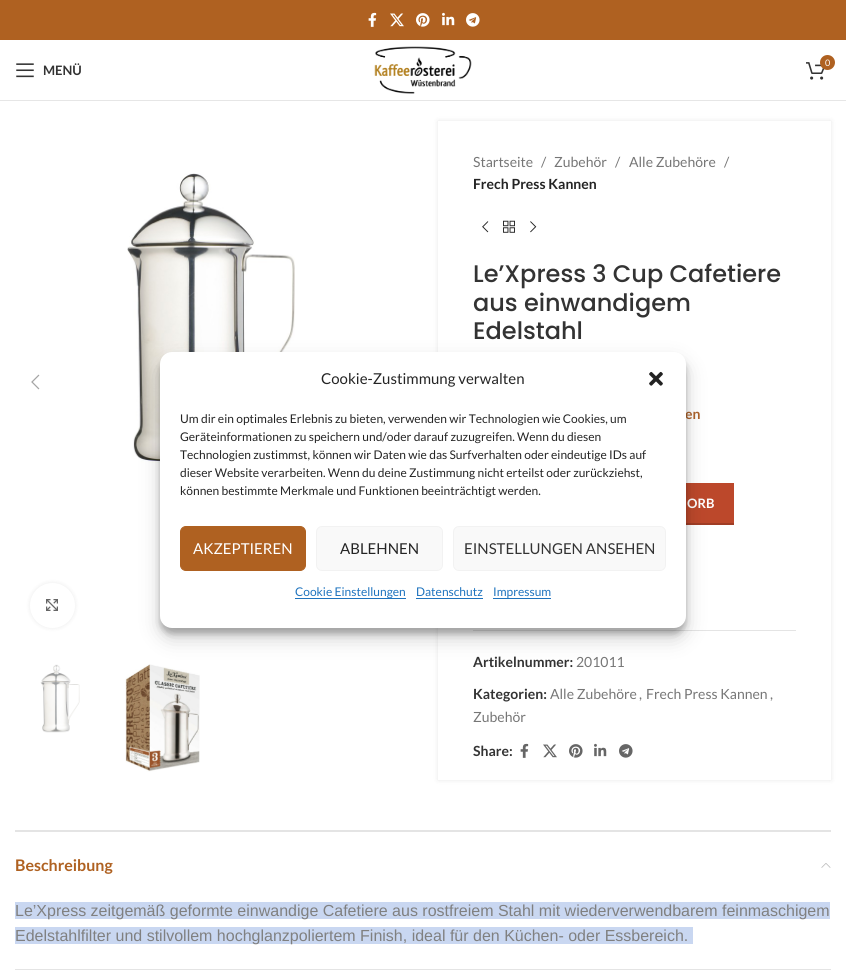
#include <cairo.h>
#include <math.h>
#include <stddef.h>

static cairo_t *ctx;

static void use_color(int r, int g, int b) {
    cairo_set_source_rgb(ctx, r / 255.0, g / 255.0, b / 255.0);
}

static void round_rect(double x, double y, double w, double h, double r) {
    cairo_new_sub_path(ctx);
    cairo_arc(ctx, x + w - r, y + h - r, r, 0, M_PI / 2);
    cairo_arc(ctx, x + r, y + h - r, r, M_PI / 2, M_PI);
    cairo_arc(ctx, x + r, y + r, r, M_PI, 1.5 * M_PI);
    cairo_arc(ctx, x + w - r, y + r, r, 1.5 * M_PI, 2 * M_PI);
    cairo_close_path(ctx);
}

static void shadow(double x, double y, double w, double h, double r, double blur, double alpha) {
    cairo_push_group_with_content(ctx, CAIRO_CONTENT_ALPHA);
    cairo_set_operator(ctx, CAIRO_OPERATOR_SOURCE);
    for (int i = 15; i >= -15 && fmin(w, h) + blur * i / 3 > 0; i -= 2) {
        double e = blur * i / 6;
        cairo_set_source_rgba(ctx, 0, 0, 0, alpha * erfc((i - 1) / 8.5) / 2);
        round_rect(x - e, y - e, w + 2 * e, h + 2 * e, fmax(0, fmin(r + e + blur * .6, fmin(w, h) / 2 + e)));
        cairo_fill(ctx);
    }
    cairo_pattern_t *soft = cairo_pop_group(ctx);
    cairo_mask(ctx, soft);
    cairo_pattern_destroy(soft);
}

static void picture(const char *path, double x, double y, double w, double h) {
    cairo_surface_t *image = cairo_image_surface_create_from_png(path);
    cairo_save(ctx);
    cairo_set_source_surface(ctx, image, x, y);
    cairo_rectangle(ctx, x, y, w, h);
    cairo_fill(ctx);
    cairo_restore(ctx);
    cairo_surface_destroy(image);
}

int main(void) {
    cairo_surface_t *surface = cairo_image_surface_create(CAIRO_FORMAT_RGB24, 846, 979);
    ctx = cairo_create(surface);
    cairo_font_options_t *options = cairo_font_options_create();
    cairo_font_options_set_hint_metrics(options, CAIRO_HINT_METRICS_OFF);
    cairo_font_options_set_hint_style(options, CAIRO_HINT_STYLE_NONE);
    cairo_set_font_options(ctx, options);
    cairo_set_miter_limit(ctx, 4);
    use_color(255, 255, 255);
    cairo_paint(ctx);
    use_color(175, 97, 33);
    cairo_rectangle(ctx, 0, 0, 846, 40);
    cairo_fill(ctx);
    picture("img1.png", 368, 12, 9, 15);
    picture("img2.png", 390, 13, 14, 14);
    picture("img3.png", 416, 13, 14, 14);
    picture("img4.png", 442, 12, 13, 14);
    picture("img5.png", 466, 13, 14, 14);
    use_color(230, 230, 230);
    cairo_rectangle(ctx, 0, 100, 846, 1);
    cairo_fill(ctx);
    picture("img6.png", 16, 63, 18, 15);
    cairo_select_font_face(ctx, "Lato", CAIRO_FONT_SLANT_NORMAL, CAIRO_FONT_WEIGHT_BOLD);
    cairo_set_font_size(ctx, 13);
    use_color(51, 51, 51);
    cairo_move_to(ctx, 43, 75);
    cairo_show_text(ctx, "MENÜ");
    picture("img7.png", 374, 46, 98, 48);
    picture("img8.png", 806, 62, 19, 18);
    use_color(175, 97, 33);
    cairo_arc(ctx, 827.5, 62.5, 7.5, 0, 2 * M_PI);
    cairo_fill(ctx);
    cairo_select_font_face(ctx, "Lato", CAIRO_FONT_SLANT_NORMAL, CAIRO_FONT_WEIGHT_NORMAL);
    cairo_set_font_size(ctx, 9);
    use_color(255, 255, 255);
    cairo_move_to(ctx, 825, 66);
    cairo_show_text(ctx, "0");
    picture("img9.png", 31, 374, 9, 16);
    picture("img10.png", 127, 173, 168, 290);
    use_color(0, 0, 0);
    shadow(30, 583, 45, 45, 22.5, 2.5, 0.08);
    use_color(255, 255, 255);
    cairo_arc(ctx, 52.5, 605.5, 22.5, 0, 2 * M_PI);
    cairo_fill(ctx);
    picture("img11.png", 46, 599, 12, 12);
    picture("img12.png", 40, 664, 40, 69);
    picture("img13.png", 125, 664, 75, 108);
    cairo_save(ctx);
    cairo_set_fill_rule(ctx, CAIRO_FILL_RULE_EVEN_ODD);
    cairo_new_path(ctx);
    cairo_move_to(ctx, 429, 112);
    cairo_line_to(ctx, 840, 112);
    cairo_line_to(ctx, 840, 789);
    cairo_line_to(ctx, 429, 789);
    cairo_close_path(ctx);
    cairo_move_to(ctx, 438, 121);
    cairo_line_to(ctx, 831, 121);
    cairo_line_to(ctx, 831, 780);
    cairo_line_to(ctx, 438, 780);
    cairo_close_path(ctx);
    cairo_clip(ctx);
    use_color(0, 0, 0);
    shadow(438, 121, 393, 659, 0, 2.5, 0.1);
    cairo_restore(ctx);
    cairo_set_font_size(ctx, 14);
    use_color(118, 118, 118);
    cairo_move_to(ctx, 473, 167);
    cairo_show_text(ctx, "Startseite");
    cairo_move_to(ctx, 541, 167);
    cairo_show_text(ctx, "/");
    cairo_move_to(ctx, 554, 167);
    cairo_show_text(ctx, "Zubehör");
    cairo_move_to(ctx, 615, 167);
    cairo_show_text(ctx, "/");
    cairo_move_to(ctx, 629, 167);
    cairo_show_text(ctx, "Alle Zubehöre");
    cairo_move_to(ctx, 724, 167);
    cairo_show_text(ctx, "/");
    cairo_select_font_face(ctx, "Lato", CAIRO_FONT_SLANT_NORMAL, CAIRO_FONT_WEIGHT_BOLD);
    use_color(36, 36, 36);
    cairo_move_to(ctx, 473, 189);
    cairo_show_text(ctx, "Frech Press Kannen");
    picture("img14.png", 482, 221, 7, 12);
    picture("img15.png", 503, 220, 12, 13);
    picture("img16.png", 530, 221, 7, 12);
    cairo_select_font_face(ctx, "Poppins Medium", CAIRO_FONT_SLANT_NORMAL, CAIRO_FONT_WEIGHT_NORMAL);
    cairo_set_font_size(ctx, 24);
    use_color(51, 51, 51);
    cairo_move_to(ctx, 473, 282);
    cairo_show_text(ctx, "Le’Xpress 3 Cup Cafetiere");
    cairo_move_to(ctx, 473, 311);
    cairo_show_text(ctx, "aus einwandigem");
    cairo_move_to(ctx, 473, 339);
    cairo_show_text(ctx, "Edelstahl");
    cairo_select_font_face(ctx, "Lato", CAIRO_FONT_SLANT_NORMAL, CAIRO_FONT_WEIGHT_BOLD);
    cairo_set_font_size(ctx, 14);
    use_color(172, 99, 44);
    cairo_move_to(ctx, 685, 419);
    cairo_show_text(ctx, "en");
    use_color(188, 72, 43);
    cairo_rectangle(ctx, 686, 483, 48, 40);
    cairo_fill(ctx);
    use_color(160, 61, 37);
    cairo_rectangle(ctx, 686, 523, 48, 2);
    cairo_fill(ctx);
    cairo_set_font_size(ctx, 13);
    use_color(255, 255, 255);
    cairo_move_to(ctx, 687, 508);
    cairo_show_text(ctx, "ORB");
    use_color(228, 228, 228);
    cairo_rectangle(ctx, 473, 630, 323, 1);
    cairo_fill(ctx);
    cairo_set_font_size(ctx, 14);
    use_color(51, 51, 51);
    cairo_move_to(ctx, 473, 667);
    cairo_show_text(ctx, "Artikelnummer:");
    cairo_select_font_face(ctx, "Lato", CAIRO_FONT_SLANT_NORMAL, CAIRO_FONT_WEIGHT_NORMAL);
    use_color(118, 118, 118);
    cairo_move_to(ctx, 576, 667);
    cairo_show_text(ctx, "201011");
    cairo_select_font_face(ctx, "Lato", CAIRO_FONT_SLANT_NORMAL, CAIRO_FONT_WEIGHT_BOLD);
    use_color(51, 51, 51);
    cairo_move_to(ctx, 473, 699);
    cairo_show_text(ctx, "Kategorien:");
    cairo_select_font_face(ctx, "Lato", CAIRO_FONT_SLANT_NORMAL, CAIRO_FONT_WEIGHT_NORMAL);
    use_color(118, 118, 118);
    cairo_move_to(ctx, 550, 699);
    cairo_show_text(ctx, "Alle Zubehöre");
    cairo_move_to(ctx, 639, 699);
    cairo_show_text(ctx, ",");
    cairo_move_to(ctx, 646, 699);
    cairo_show_text(ctx, "Frech Press Kannen");
    cairo_move_to(ctx, 770, 699);
    cairo_show_text(ctx, ",");
    cairo_move_to(ctx, 473, 722);
    cairo_show_text(ctx, "Zubehör");
    cairo_select_font_face(ctx, "Lato", CAIRO_FONT_SLANT_NORMAL, CAIRO_FONT_WEIGHT_BOLD);
    use_color(51, 51, 51);
    cairo_move_to(ctx, 473, 756);
    cairo_show_text(ctx, "Share:");
    picture("img17.png", 520, 743, 9, 15);
    picture("img18.png", 543, 744, 14, 14);
    picture("img19.png", 569, 744, 14, 14);
    picture("img20.png", 594, 743, 13, 14);
    picture("img21.png", 619, 744, 14, 14);
    use_color(228, 228, 228);
    cairo_rectangle(ctx, 15, 830, 816, 2);
    cairo_fill(ctx);
    cairo_rectangle(ctx, 15, 969, 816, 1);
    cairo_fill(ctx);
    cairo_set_font_size(ctx, 16);
    use_color(175, 97, 33);
    cairo_move_to(ctx, 15, 871);
    cairo_show_text(ctx, "Beschreibung");
    picture("img22.png", 821, 863, 10, 5);
    use_color(201, 215, 241);
    cairo_rectangle(ctx, 15, 902, 815, 17);
    cairo_fill(ctx);
    cairo_select_font_face(ctx, "Liberation Sans", CAIRO_FONT_SLANT_NORMAL, CAIRO_FONT_WEIGHT_NORMAL);
    use_color(128, 128, 128);
    cairo_move_to(ctx, 15, 916);
    cairo_show_text(ctx, "Le’Xpress zeitgemäß geformte einwandige Cafetiere aus rostfreiem Stahl mit wiederverwendbarem feinmaschigem");
    use_color(201, 215, 241);
    cairo_rectangle(ctx, 15, 927, 678, 17);
    cairo_fill(ctx);
    use_color(128, 128, 128);
    cairo_move_to(ctx, 15, 941);
    cairo_show_text(ctx, "Edelstahlfilter und stilvollem hochglanzpoliertem Finish, ideal für den Küchen- oder Essbereich.");
    use_color(0, 0, 0);
    shadow(160, 358, 526, 276, 12, 3, 0.23);
    shadow(160, 362, 526, 276, 12, 10, 0.19);
    use_color(255, 255, 255);
    round_rect(160, 352, 526, 276, 12);
    cairo_fill(ctx);
    cairo_select_font_face(ctx, "Lato", CAIRO_FONT_SLANT_NORMAL, CAIRO_FONT_WEIGHT_NORMAL);
    cairo_set_font_size(ctx, 15);
    use_color(36, 36, 36);
    cairo_move_to(ctx, 321, 384);
    cairo_show_text(ctx, "Cookie-Zustimmung verwalten");
    picture("img23.png", 649, 371, 14, 15);
    cairo_set_font_size(ctx, 12);
    cairo_move_to(ctx, 180, 423);
    cairo_show_text(ctx, "Um dir ein optimales Erlebnis zu bieten, verwenden wir Technologien wie Cookies, um");
    cairo_move_to(ctx, 180, 441);
    cairo_show_text(ctx, "Geräteinformationen zu speichern und/oder darauf zuzugreifen. Wenn du diesen");
    cairo_move_to(ctx, 180, 459);
    cairo_show_text(ctx, "Technologien zustimmst, können wir Daten wie das Surfverhalten oder eindeutige IDs auf");
    cairo_move_to(ctx, 180, 477);
    cairo_show_text(ctx, "dieser Website verarbeiten. Wenn du deine Zustimmung nicht erteilst oder zurückziehst,");
    cairo_move_to(ctx, 180, 495);
    cairo_show_text(ctx, "können bestimmte Merkmale und Funktionen beeinträchtigt werden.");
    use_color(175, 97, 33);
    round_rect(180.5, 526.5, 125, 44, 5.5);
    cairo_fill_preserve(ctx);
    cairo_set_line_width(ctx, 1);
    cairo_stroke(ctx);
    cairo_set_font_size(ctx, 15);
    use_color(255, 255, 255);
    cairo_move_to(ctx, 193, 554);
    cairo_show_text(ctx, "AKZEPTIEREN");
    use_color(249, 249, 249);
    round_rect(316.5, 526.5, 126, 44, 5.5);
    cairo_fill_preserve(ctx);
    use_color(242, 242, 242);
    cairo_stroke(ctx);
    use_color(36, 36, 36);
    cairo_move_to(ctx, 340, 554);
    cairo_show_text(ctx, "ABLEHNEN");
    use_color(249, 249, 249);
    round_rect(453.5, 526.5, 212, 44, 5.5);
    cairo_fill_preserve(ctx);
    use_color(242, 242, 242);
    cairo_stroke(ctx);
    use_color(51, 51, 51);
    cairo_move_to(ctx, 464, 554);
    cairo_show_text(ctx, "EINSTELLUNGEN ANSEHEN");
    use_color(30, 115, 190);
    cairo_rectangle(ctx, 295, 598, 111, 1);
    cairo_fill(ctx);
    cairo_set_font_size(ctx, 12);
    cairo_move_to(ctx, 295, 596);
    cairo_show_text(ctx, "Cookie Einstellungen");
    cairo_move_to(ctx, 416, 596);
    cairo_show_text(ctx, "Datenschutz");
    cairo_rectangle(ctx, 416, 598, 67, 1);
    cairo_fill(ctx);
    cairo_rectangle(ctx, 493, 598, 58, 1);
    cairo_fill(ctx);
    cairo_move_to(ctx, 493, 596);
    cairo_show_text(ctx, "Impressum");
    cairo_surface_write_to_png(surface, "result.png");
    cairo_font_options_destroy(options);
    cairo_destroy(ctx);
    cairo_surface_destroy(surface);
    return 0;
}
